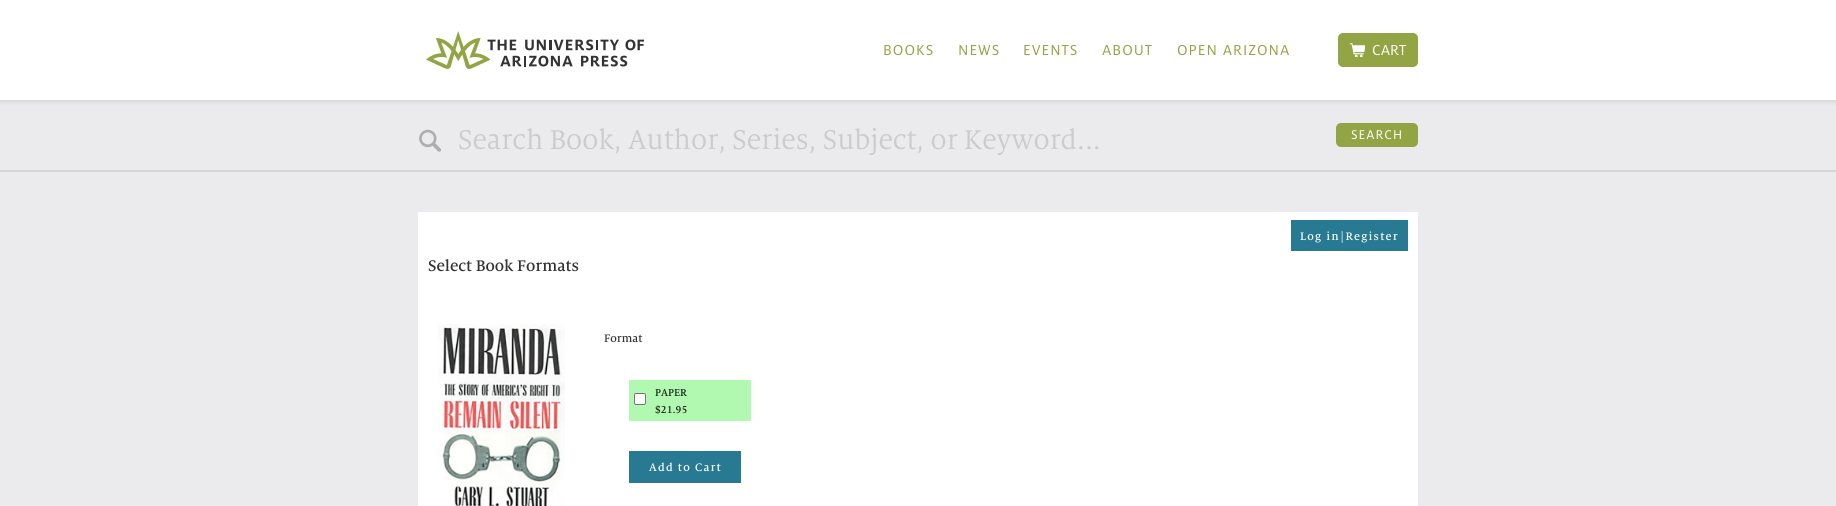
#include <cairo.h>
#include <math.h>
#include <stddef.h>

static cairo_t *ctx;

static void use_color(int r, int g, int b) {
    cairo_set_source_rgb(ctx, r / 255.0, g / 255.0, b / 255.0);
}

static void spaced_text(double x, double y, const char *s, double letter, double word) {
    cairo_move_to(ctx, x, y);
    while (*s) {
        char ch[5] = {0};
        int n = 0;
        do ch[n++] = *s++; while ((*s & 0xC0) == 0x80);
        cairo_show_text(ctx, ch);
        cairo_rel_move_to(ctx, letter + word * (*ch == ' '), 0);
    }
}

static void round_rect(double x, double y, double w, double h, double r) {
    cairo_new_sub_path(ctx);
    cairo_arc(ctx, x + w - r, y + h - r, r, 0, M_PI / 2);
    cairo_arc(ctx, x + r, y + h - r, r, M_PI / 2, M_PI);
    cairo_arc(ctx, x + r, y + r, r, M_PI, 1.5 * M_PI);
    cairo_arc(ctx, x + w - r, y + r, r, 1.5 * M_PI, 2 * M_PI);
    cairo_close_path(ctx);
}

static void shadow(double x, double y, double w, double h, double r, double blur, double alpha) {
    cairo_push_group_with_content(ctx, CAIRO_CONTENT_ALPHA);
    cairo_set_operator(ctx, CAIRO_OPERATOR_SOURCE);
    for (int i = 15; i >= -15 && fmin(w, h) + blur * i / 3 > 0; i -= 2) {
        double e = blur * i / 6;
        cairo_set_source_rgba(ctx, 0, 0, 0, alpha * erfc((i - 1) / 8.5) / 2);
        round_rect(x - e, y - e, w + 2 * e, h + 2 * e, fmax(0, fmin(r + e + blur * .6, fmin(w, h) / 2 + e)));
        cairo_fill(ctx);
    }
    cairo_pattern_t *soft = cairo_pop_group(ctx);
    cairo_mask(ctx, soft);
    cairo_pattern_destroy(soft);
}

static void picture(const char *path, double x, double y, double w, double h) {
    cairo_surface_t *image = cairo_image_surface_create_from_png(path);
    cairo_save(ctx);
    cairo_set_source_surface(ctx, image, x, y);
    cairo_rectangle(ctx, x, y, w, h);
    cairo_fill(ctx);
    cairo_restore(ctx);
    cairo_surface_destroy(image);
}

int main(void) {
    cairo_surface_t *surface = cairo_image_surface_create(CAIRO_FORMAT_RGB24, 1836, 506);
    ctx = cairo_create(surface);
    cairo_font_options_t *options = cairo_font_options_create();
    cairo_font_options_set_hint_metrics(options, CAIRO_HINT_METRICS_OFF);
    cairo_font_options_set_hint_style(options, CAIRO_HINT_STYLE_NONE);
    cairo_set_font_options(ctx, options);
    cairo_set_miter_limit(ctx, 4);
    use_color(235, 235, 237);
    cairo_paint(ctx);
    use_color(214, 214, 214);
    shadow(-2, -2, 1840, 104, 0, 2, 1);
    use_color(255, 255, 255);
    cairo_rectangle(ctx, 0, 0, 1836, 100);
    cairo_fill(ctx);
    picture("img1.png", 426, 31, 218, 38);
    cairo_select_font_face(ctx, "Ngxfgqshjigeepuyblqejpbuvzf", CAIRO_FONT_SLANT_NORMAL, CAIRO_FONT_WEIGHT_NORMAL);
    cairo_set_font_size(ctx, 16);
    use_color(147, 164, 69);
    spaced_text(883, 55, "BOOKS", 1, 0);
    spaced_text(958, 55, "NEWS", 1, 0);
    spaced_text(1023, 55, "EVENTS", 1, 0);
    spaced_text(1102, 55, "ABOUT", 1, 0);
    spaced_text(1177, 55, "OPEN ARIZONA", 1, 0);
    round_rect(1338, 33, 80, 34, 5);
    cairo_fill(ctx);
    picture("img2.png", 1350, 43, 15, 14);
    use_color(255, 255, 255);
    cairo_move_to(ctx, 1372, 55);
    cairo_show_text(ctx, "CART");
    use_color(214, 214, 214);
    cairo_rectangle(ctx, 0, 170, 1836, 2);
    cairo_fill(ctx);
    picture("img3.png", 419, 129, 22, 23);
    cairo_select_font_face(ctx, "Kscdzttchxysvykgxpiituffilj", CAIRO_FONT_SLANT_NORMAL, CAIRO_FONT_WEIGHT_NORMAL);
    cairo_set_font_size(ctx, 30);
    use_color(204, 204, 204);
    cairo_move_to(ctx, 458, 149);
    cairo_show_text(ctx, "Search Book, Author, Series, Subject, or Keyword...");
    use_color(147, 164, 69);
    round_rect(1336, 123, 82, 24, 5);
    cairo_fill(ctx);
    cairo_select_font_face(ctx, "Ngxfgqshjigeepuyblqejpbuvzf", CAIRO_FONT_SLANT_NORMAL, CAIRO_FONT_WEIGHT_NORMAL);
    cairo_set_font_size(ctx, 14);
    use_color(255, 255, 255);
    spaced_text(1351, 139, "SEARCH", 1, 0);
    cairo_rectangle(ctx, 418, 212, 1000, 294);
    cairo_fill(ctx);
    use_color(40, 122, 147);
    cairo_rectangle(ctx, 1291, 220, 117, 31);
    cairo_fill(ctx);
    cairo_select_font_face(ctx, "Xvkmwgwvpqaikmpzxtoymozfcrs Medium", CAIRO_FONT_SLANT_NORMAL, CAIRO_FONT_WEIGHT_NORMAL);
    cairo_set_font_size(ctx, 12);
    use_color(255, 255, 255);
    spaced_text(1300, 240, "Log in|Register", 1.25, 0);
    cairo_set_font_size(ctx, 17);
    use_color(51, 51, 51);
    cairo_move_to(ctx, 428, 271);
    cairo_show_text(ctx, "Select Book Formats");
    picture("img4.png", 438, 324, 127, 182);
    cairo_set_font_size(ctx, 12);
    cairo_move_to(ctx, 604, 342);
    cairo_show_text(ctx, "Format");
    use_color(177, 249, 177);
    cairo_rectangle(ctx, 629, 380, 122, 41);
    cairo_fill(ctx);
    use_color(255, 255, 255);
    round_rect(634.5, 393.5, 11, 11, 1.5);
    cairo_fill_preserve(ctx);
    use_color(118, 118, 118);
    cairo_set_line_width(ctx, 1);
    cairo_stroke(ctx);
    cairo_set_font_size(ctx, 11);
    use_color(23, 32, 23);
    cairo_move_to(ctx, 655, 396);
    cairo_show_text(ctx, "PAPER");
    cairo_move_to(ctx, 655, 413);
    cairo_show_text(ctx, "$21.95");
    use_color(40, 122, 147);
    cairo_rectangle(ctx, 629, 451, 112, 32);
    cairo_fill(ctx);
    cairo_set_font_size(ctx, 12);
    use_color(255, 255, 255);
    spaced_text(649, 471, "Add to Cart", 1.25, 0);
    cairo_surface_write_to_png(surface, "result.png");
    cairo_font_options_destroy(options);
    cairo_destroy(ctx);
    cairo_surface_destroy(surface);
    return 0;
}
